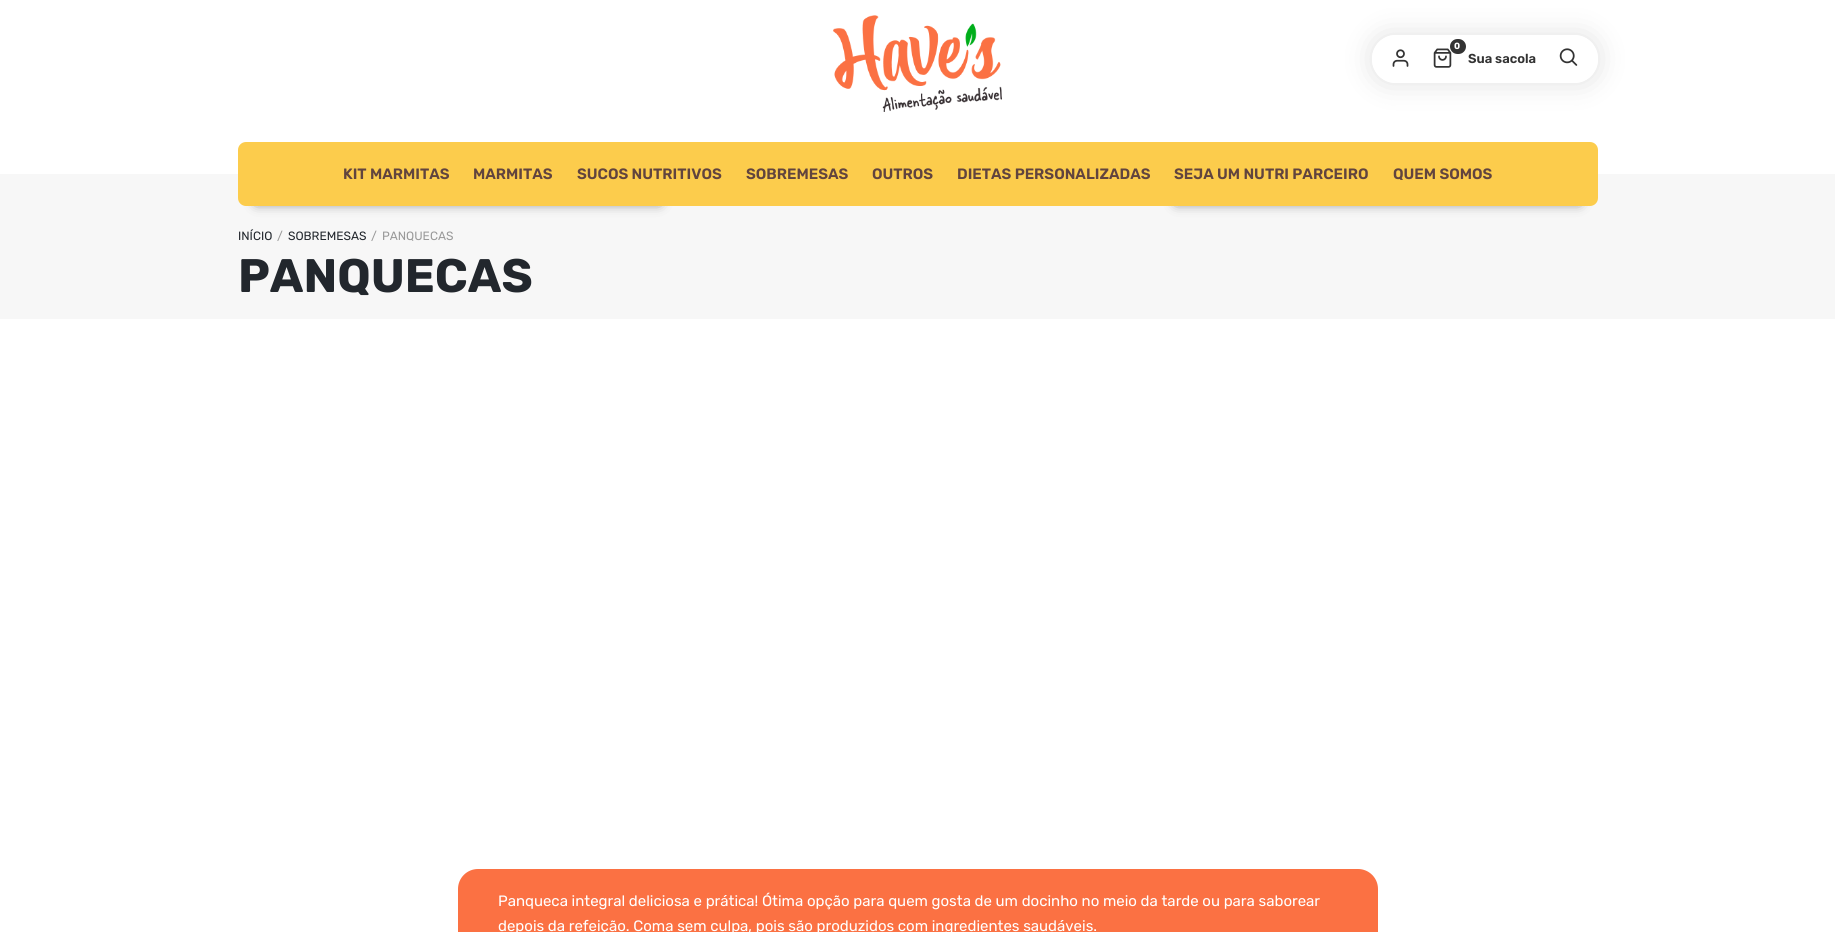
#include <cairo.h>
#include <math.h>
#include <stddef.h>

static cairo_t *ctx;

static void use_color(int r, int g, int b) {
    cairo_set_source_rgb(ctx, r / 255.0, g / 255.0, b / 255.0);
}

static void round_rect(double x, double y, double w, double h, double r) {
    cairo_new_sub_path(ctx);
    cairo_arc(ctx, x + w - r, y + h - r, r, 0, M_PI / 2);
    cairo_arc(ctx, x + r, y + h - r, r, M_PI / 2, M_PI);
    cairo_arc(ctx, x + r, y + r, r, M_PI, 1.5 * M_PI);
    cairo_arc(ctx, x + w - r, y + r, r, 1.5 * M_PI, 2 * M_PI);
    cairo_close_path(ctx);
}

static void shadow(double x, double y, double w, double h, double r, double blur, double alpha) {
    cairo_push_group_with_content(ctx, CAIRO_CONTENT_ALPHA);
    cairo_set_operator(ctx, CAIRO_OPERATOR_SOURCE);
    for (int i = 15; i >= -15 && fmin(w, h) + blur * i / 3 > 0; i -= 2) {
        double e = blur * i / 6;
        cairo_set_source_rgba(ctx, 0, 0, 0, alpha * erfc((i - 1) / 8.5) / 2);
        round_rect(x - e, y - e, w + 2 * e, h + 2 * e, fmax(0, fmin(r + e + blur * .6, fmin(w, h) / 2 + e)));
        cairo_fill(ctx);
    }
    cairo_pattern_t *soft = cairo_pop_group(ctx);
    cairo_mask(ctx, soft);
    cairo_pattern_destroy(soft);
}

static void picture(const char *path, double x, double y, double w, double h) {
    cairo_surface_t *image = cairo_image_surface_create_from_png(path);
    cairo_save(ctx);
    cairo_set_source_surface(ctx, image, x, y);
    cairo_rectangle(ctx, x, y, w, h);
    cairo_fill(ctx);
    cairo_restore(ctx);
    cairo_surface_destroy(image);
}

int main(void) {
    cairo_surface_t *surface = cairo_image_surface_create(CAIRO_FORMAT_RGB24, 1835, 932);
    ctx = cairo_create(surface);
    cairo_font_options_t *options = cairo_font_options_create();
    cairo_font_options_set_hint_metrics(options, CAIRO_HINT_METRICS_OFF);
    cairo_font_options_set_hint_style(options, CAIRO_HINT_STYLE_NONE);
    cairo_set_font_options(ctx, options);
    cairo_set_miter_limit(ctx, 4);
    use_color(255, 255, 255);
    cairo_paint(ctx);
    picture("img1.png", 833, 15, 169, 97);
    cairo_save(ctx);
    cairo_set_fill_rule(ctx, CAIRO_FILL_RULE_EVEN_ODD);
    cairo_new_path(ctx);
    cairo_move_to(ctx, 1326, 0);
    cairo_line_to(ctx, 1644, 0);
    cairo_line_to(ctx, 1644, 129);
    cairo_line_to(ctx, 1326, 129);
    cairo_close_path(ctx);
    cairo_move_to(ctx, 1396, 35);
    cairo_line_to(ctx, 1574, 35);
    cairo_curve_to(ctx, 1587.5, 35, 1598, 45.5, 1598, 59);
    cairo_curve_to(ctx, 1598, 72.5, 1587.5, 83, 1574, 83);
    cairo_line_to(ctx, 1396, 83);
    cairo_curve_to(ctx, 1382.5, 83, 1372, 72.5, 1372, 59);
    cairo_curve_to(ctx, 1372, 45.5, 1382.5, 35, 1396, 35);
    cairo_close_path(ctx);
    cairo_clip(ctx);
    use_color(0, 0, 0);
    shadow(1372, 35, 226, 48, 24, 15, 0.12);
    cairo_restore(ctx);
    cairo_set_source_rgba(ctx, 1, 1, 1, 0.87);
    round_rect(1372, 35, 226, 48, 24);
    cairo_fill(ctx);
    picture("img2.png", 1392, 49, 17, 18);
    picture("img3.png", 1433, 48, 19, 20);
    use_color(51, 51, 51);
    round_rect(1450, 39, 16, 15, 7.5);
    cairo_fill(ctx);
    cairo_select_font_face(ctx, "Rubik", CAIRO_FONT_SLANT_NORMAL, CAIRO_FONT_WEIGHT_BOLD);
    cairo_set_font_size(ctx, 9);
    use_color(255, 255, 255);
    cairo_move_to(ctx, 1454, 49);
    cairo_show_text(ctx, "0");
    cairo_select_font_face(ctx, "Rubik SemiBold", CAIRO_FONT_SLANT_NORMAL, CAIRO_FONT_WEIGHT_NORMAL);
    cairo_set_font_size(ctx, 13);
    use_color(51, 51, 51);
    cairo_move_to(ctx, 1468, 63);
    cairo_show_text(ctx, "Sua sacola");
    picture("img4.png", 1559, 48, 19, 18);
    use_color(247, 247, 247);
    cairo_rectangle(ctx, 0, 174, 1835, 145);
    cairo_fill(ctx);
    use_color(51, 51, 51);
    shadow(258, 197, 400, 4, 0, 6.5, 1);
    shadow(1178, 197, 400, 4, 0, 6.5, 1);
    use_color(252, 204, 76);
    round_rect(238, 142, 1360, 64, 8);
    cairo_fill(ctx);
    cairo_set_font_size(ctx, 15);
    use_color(97, 68, 62);
    cairo_move_to(ctx, 343, 179);
    cairo_show_text(ctx, "KIT MARMITAS");
    cairo_move_to(ctx, 473, 179);
    cairo_show_text(ctx, "MARMITAS");
    cairo_move_to(ctx, 577, 179);
    cairo_show_text(ctx, "SUCOS NUTRITIVOS");
    cairo_move_to(ctx, 746, 179);
    cairo_show_text(ctx, "SOBREMESAS");
    cairo_move_to(ctx, 872, 179);
    cairo_show_text(ctx, "OUTROS");
    cairo_move_to(ctx, 957, 179);
    cairo_show_text(ctx, "DIETAS PERSONALIZADAS");
    cairo_move_to(ctx, 1174, 179);
    cairo_show_text(ctx, "SEJA UM NUTRI PARCEIRO");
    cairo_move_to(ctx, 1393, 179);
    cairo_show_text(ctx, "QUEM SOMOS");
    cairo_select_font_face(ctx, "Rubik", CAIRO_FONT_SLANT_NORMAL, CAIRO_FONT_WEIGHT_NORMAL);
    cairo_set_font_size(ctx, 12);
    use_color(34, 39, 45);
    cairo_move_to(ctx, 238, 240);
    cairo_show_text(ctx, "INÍCIO");
    use_color(153, 153, 153);
    cairo_move_to(ctx, 277, 240);
    cairo_show_text(ctx, "/");
    use_color(34, 39, 45);
    cairo_move_to(ctx, 288, 240);
    cairo_show_text(ctx, "SOBREMESAS");
    use_color(153, 153, 153);
    cairo_move_to(ctx, 371, 240);
    cairo_show_text(ctx, "/");
    cairo_move_to(ctx, 382, 240);
    cairo_show_text(ctx, "PANQUECAS");
    cairo_select_font_face(ctx, "Rubik", CAIRO_FONT_SLANT_NORMAL, CAIRO_FONT_WEIGHT_BOLD);
    cairo_set_font_size(ctx, 47);
    use_color(34, 39, 45);
    cairo_move_to(ctx, 238, 292);
    cairo_show_text(ctx, "PANQUECAS");
    use_color(251, 113, 67);
    round_rect(458, 869, 920, 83, 20);
    cairo_fill(ctx);
    cairo_select_font_face(ctx, "Rubik", CAIRO_FONT_SLANT_NORMAL, CAIRO_FONT_WEIGHT_NORMAL);
    cairo_set_font_size(ctx, 15);
    use_color(255, 255, 255);
    cairo_move_to(ctx, 498, 906);
    cairo_show_text(ctx, "Panqueca integral deliciosa e prática! Ótima opção para quem gosta de um docinho no meio da tarde ou para saborear");
    cairo_move_to(ctx, 498, 931);
    cairo_show_text(ctx, "depois da refeição. Coma sem culpa, pois são produzidos com ingredientes saudáveis.");
    cairo_surface_write_to_png(surface, "result.png");
    cairo_font_options_destroy(options);
    cairo_destroy(ctx);
    cairo_surface_destroy(surface);
    return 0;
}
